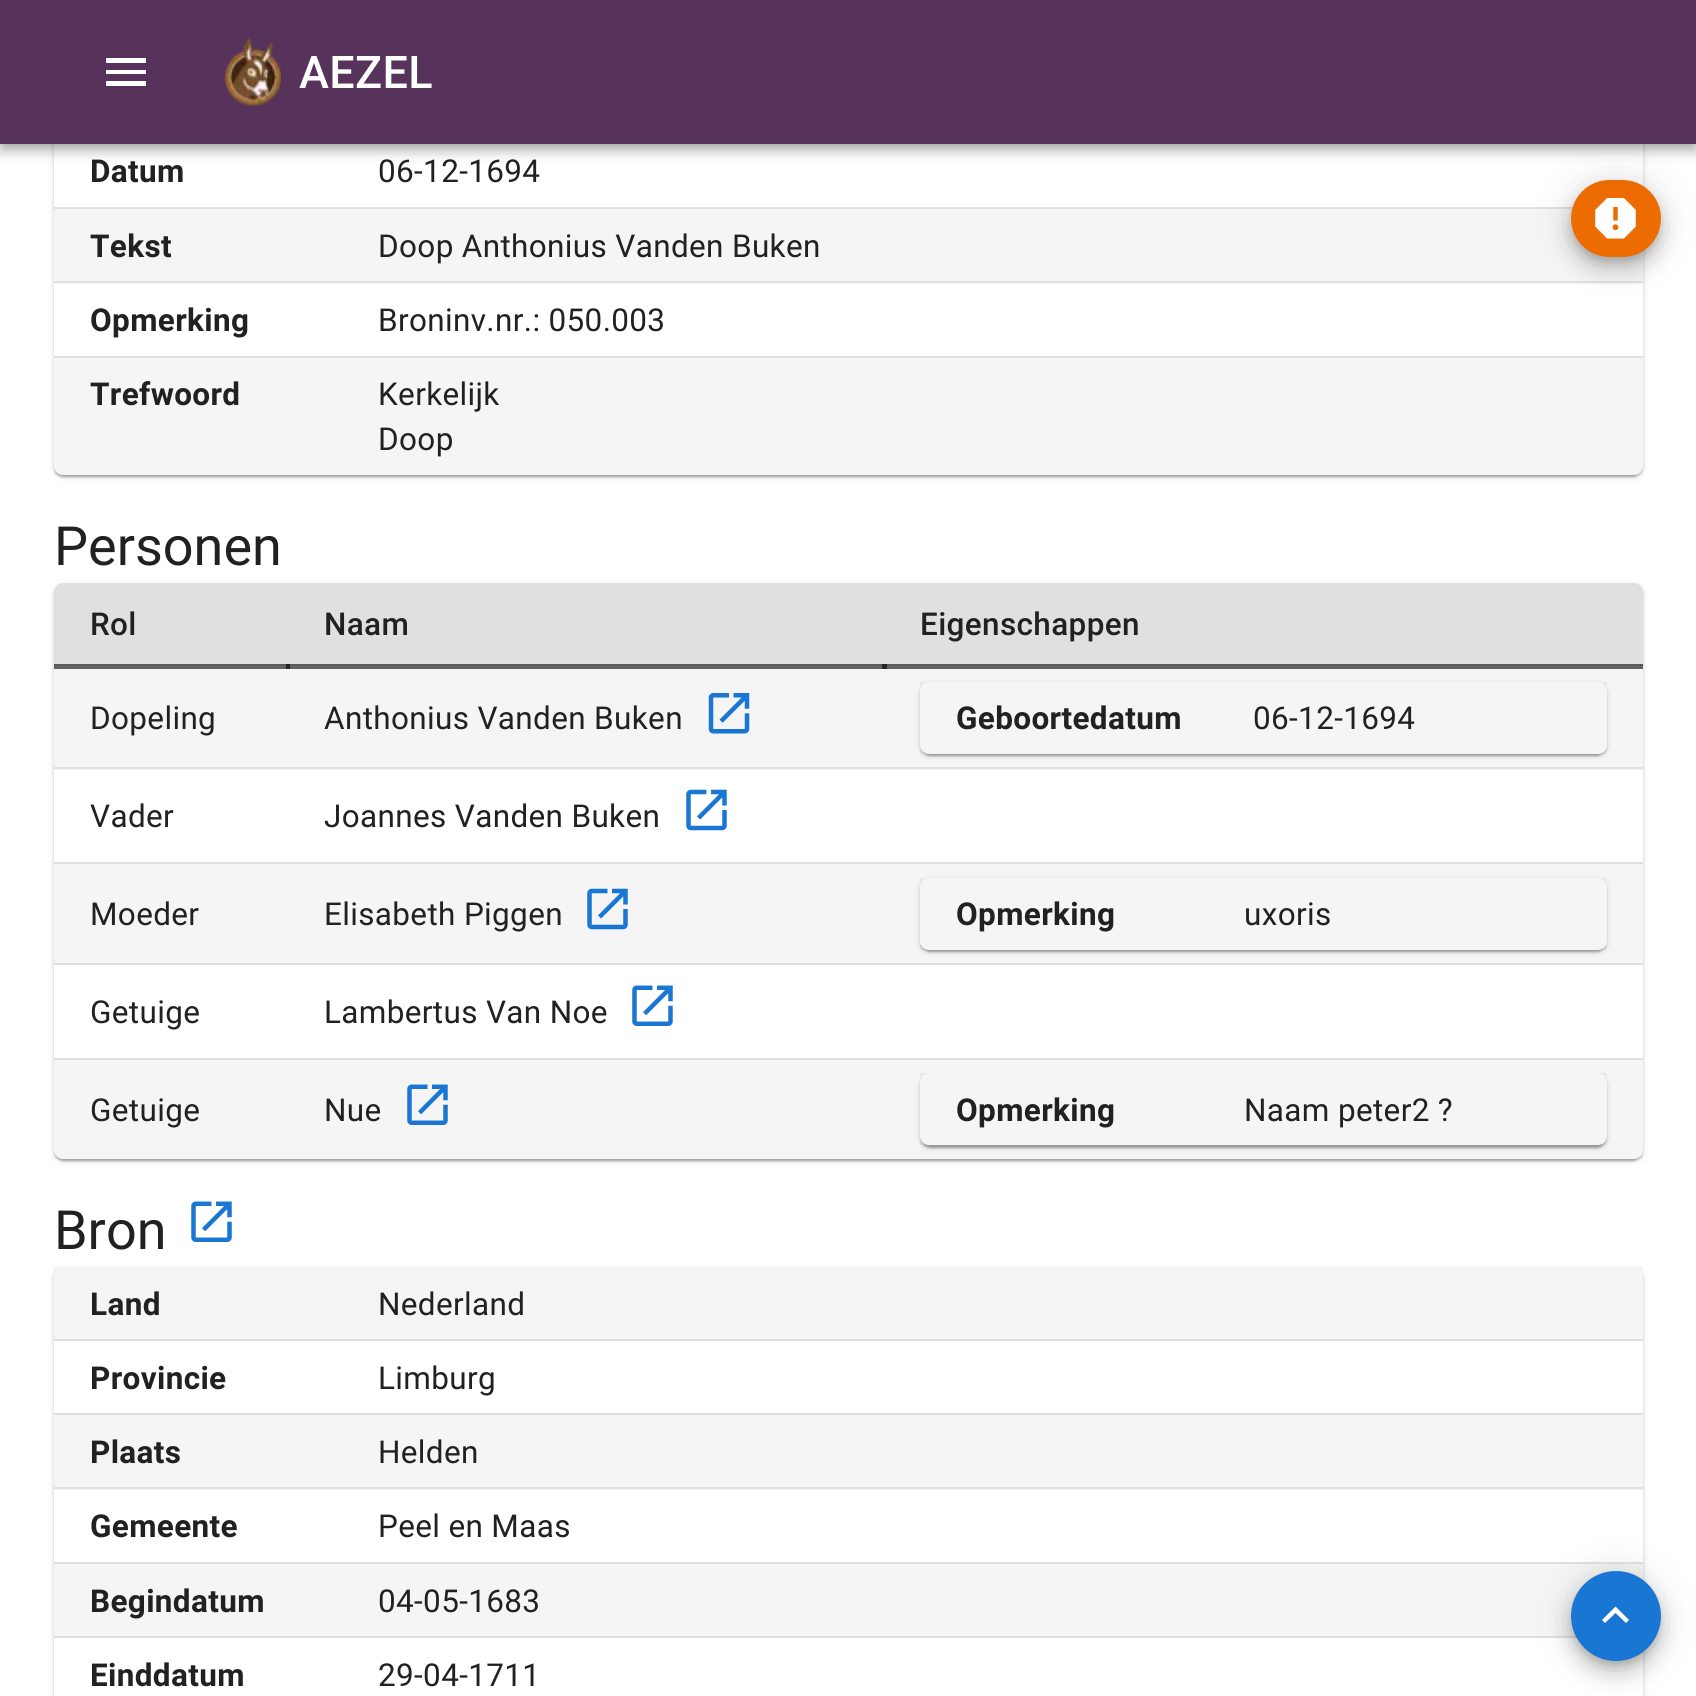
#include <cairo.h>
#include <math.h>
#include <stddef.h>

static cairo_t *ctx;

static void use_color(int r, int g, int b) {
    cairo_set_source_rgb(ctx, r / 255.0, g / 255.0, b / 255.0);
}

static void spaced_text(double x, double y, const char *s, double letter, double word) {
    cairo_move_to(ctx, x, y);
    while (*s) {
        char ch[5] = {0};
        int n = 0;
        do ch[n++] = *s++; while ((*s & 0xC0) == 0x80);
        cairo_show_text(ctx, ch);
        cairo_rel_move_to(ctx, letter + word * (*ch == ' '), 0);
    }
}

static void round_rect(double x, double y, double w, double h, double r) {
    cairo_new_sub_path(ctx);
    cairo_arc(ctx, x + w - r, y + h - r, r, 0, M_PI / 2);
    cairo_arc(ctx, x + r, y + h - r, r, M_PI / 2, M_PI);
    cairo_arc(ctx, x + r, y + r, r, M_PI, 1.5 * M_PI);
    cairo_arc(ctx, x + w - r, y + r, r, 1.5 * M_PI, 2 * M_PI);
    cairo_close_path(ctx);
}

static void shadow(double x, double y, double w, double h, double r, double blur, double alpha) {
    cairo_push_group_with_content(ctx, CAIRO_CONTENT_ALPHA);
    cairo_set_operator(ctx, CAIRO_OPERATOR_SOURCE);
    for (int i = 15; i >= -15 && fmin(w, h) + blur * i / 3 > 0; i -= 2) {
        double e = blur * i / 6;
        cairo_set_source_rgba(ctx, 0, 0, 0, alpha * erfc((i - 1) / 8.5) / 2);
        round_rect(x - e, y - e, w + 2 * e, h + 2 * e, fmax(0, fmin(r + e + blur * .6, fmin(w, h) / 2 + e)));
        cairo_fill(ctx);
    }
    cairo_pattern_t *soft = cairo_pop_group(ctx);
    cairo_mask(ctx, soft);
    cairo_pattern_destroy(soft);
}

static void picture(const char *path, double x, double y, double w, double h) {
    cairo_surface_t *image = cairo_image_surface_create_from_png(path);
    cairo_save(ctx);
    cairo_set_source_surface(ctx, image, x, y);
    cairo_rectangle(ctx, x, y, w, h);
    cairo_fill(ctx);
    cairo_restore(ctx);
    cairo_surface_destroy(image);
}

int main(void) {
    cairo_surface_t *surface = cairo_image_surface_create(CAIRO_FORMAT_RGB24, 1696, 1696);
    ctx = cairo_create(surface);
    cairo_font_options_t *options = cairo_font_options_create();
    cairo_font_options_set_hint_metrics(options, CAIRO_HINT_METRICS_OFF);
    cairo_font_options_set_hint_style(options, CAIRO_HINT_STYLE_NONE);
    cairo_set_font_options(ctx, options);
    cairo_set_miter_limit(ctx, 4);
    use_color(255, 255, 255);
    cairo_paint(ctx);
    use_color(0, 0, 0);
    shadow(54, -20, 1589, 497, 9, 3.5, 0.12);
    shadow(54, -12, 1589, 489, 9, 1, 0.14);
    shadow(56, -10, 1584, 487, 7, 1, 0.2);
    use_color(255, 255, 255);
    round_rect(54, -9, 1589, 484, 9);
    cairo_fill(ctx);
    use_color(0, 0, 0);
    shadow(0, 2, 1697, 144, 0, 11, 0.12);
    shadow(0, 9, 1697, 144, 0, 5.5, 0.14);
    shadow(2, 7, 1692, 139, 0, 4.5, 0.2);
    use_color(224, 224, 224);
    cairo_rectangle(ctx, 54, 207, 1519, 2);
    cairo_fill(ctx);
    use_color(245, 245, 245);
    cairo_rectangle(ctx, 54, 209, 1589, 75);
    cairo_fill(ctx);
    use_color(224, 224, 224);
    cairo_rectangle(ctx, 54, 281, 1589, 2);
    cairo_fill(ctx);
    use_color(0, 0, 0);
    shadow(1571, 182, 90, 77, 38.5, 20, 0.12);
    use_color(87, 51, 91);
    cairo_rectangle(ctx, 0, 0, 1696, 144);
    cairo_fill(ctx);
    use_color(255, 255, 255);
    cairo_new_path(ctx);
    cairo_move_to(ctx, 106, 86);
    cairo_line_to(ctx, 146, 86);
    cairo_line_to(ctx, 146, 81);
    cairo_line_to(ctx, 106, 81);
    cairo_close_path(ctx);
    cairo_move_to(ctx, 106, 74);
    cairo_line_to(ctx, 146, 74);
    cairo_line_to(ctx, 146, 70);
    cairo_line_to(ctx, 106, 70);
    cairo_close_path(ctx);
    cairo_move_to(ctx, 106, 58);
    cairo_line_to(ctx, 106, 63);
    cairo_line_to(ctx, 146, 63);
    cairo_line_to(ctx, 146, 58);
    cairo_close_path(ctx);
    cairo_fill(ctx);
    picture("img1.png", 225, 38, 56, 68);
    cairo_select_font_face(ctx, "Roboto Medium", CAIRO_FONT_SLANT_NORMAL, CAIRO_FONT_WEIGHT_NORMAL);
    cairo_set_font_size(ctx, 45);
    spaced_text(299, 88, "AEZEL", 0.35, 0);
    cairo_select_font_face(ctx, "Roboto", CAIRO_FONT_SLANT_NORMAL, CAIRO_FONT_WEIGHT_BOLD);
    cairo_set_font_size(ctx, 31.5);
    use_color(33, 33, 33);
    spaced_text(90, 182, "Datum", 0.35, 0);
    cairo_select_font_face(ctx, "Roboto", CAIRO_FONT_SLANT_NORMAL, CAIRO_FONT_WEIGHT_NORMAL);
    spaced_text(378, 182, "06-12-1694", 0.35, 0);
    cairo_select_font_face(ctx, "Roboto", CAIRO_FONT_SLANT_NORMAL, CAIRO_FONT_WEIGHT_BOLD);
    spaced_text(90, 257, "Tekst", 0.35, 0);
    cairo_select_font_face(ctx, "Roboto", CAIRO_FONT_SLANT_NORMAL, CAIRO_FONT_WEIGHT_NORMAL);
    spaced_text(378, 257, "Doop Anthonius Vanden Buken", 0.35, 0);
    cairo_select_font_face(ctx, "Roboto", CAIRO_FONT_SLANT_NORMAL, CAIRO_FONT_WEIGHT_BOLD);
    spaced_text(90, 331, "Opmerking", 0.35, 0);
    use_color(224, 224, 224);
    cairo_rectangle(ctx, 54, 356, 1589, 2);
    cairo_fill(ctx);
    cairo_select_font_face(ctx, "Roboto", CAIRO_FONT_SLANT_NORMAL, CAIRO_FONT_WEIGHT_NORMAL);
    use_color(33, 33, 33);
    spaced_text(378, 331, "Broninv.nr.: 050.003", 0.35, 0);
    cairo_set_source_rgba(ctx, 0, 0, 0, 0.04);
    cairo_rectangle(ctx, 54, 358, 1589, 117);
    cairo_fill(ctx);
    cairo_select_font_face(ctx, "Roboto", CAIRO_FONT_SLANT_NORMAL, CAIRO_FONT_WEIGHT_BOLD);
    use_color(33, 33, 33);
    spaced_text(90, 405, "Trefwoord", 0.35, 0);
    cairo_select_font_face(ctx, "Roboto", CAIRO_FONT_SLANT_NORMAL, CAIRO_FONT_WEIGHT_NORMAL);
    spaced_text(378, 405, "Kerkelijk", 0.35, 0);
    spaced_text(378, 450, "Doop", 0.35, 0);
    cairo_set_font_size(ctx, 54);
    cairo_move_to(ctx, 54, 565);
    cairo_show_text(ctx, "Personen");
    use_color(0, 0, 0);
    shadow(54, 585, 1589, 576, 9, 3.5, 0.12);
    shadow(54, 585, 1589, 576, 9, 1, 0.14);
    shadow(56, 590, 1584, 571, 7, 1, 0.2);
    use_color(255, 255, 255);
    round_rect(54, 583, 1589, 576, 9);
    cairo_fill(ctx);
    use_color(224, 224, 224);
    cairo_new_path(ctx);
    cairo_move_to(ctx, 63, 583);
    cairo_line_to(ctx, 288, 583);
    cairo_line_to(ctx, 288, 666);
    cairo_line_to(ctx, 54, 666);
    cairo_line_to(ctx, 54, 592);
    cairo_curve_to(ctx, 54, 587, 58, 583, 63, 583);
    cairo_close_path(ctx);
    cairo_fill(ctx);
    cairo_rectangle(ctx, 288, 583, 596, 83);
    cairo_fill(ctx);
    cairo_new_path(ctx);
    cairo_move_to(ctx, 884, 583);
    cairo_line_to(ctx, 1634, 583);
    cairo_curve_to(ctx, 1639, 583, 1643, 587, 1643, 592);
    cairo_line_to(ctx, 1643, 666);
    cairo_line_to(ctx, 884, 666);
    cairo_close_path(ctx);
    cairo_fill(ctx);
    use_color(245, 245, 245);
    cairo_rectangle(ctx, 54, 666, 1589, 104);
    cairo_fill(ctx);
    cairo_set_source_rgba(ctx, 0, 0, 0, 0.6);
    cairo_rectangle(ctx, 882, 664, 761, 5);
    cairo_fill(ctx);
    cairo_rectangle(ctx, 286, 664, 601, 5);
    cairo_fill(ctx);
    cairo_rectangle(ctx, 54, 664, 236, 5);
    cairo_fill(ctx);
    cairo_select_font_face(ctx, "Roboto Medium", CAIRO_FONT_SLANT_NORMAL, CAIRO_FONT_WEIGHT_NORMAL);
    cairo_set_font_size(ctx, 31.5);
    use_color(33, 33, 33);
    spaced_text(90, 635, "Rol", 0.35, 0);
    spaced_text(324, 635, "Naam", 0.35, 0);
    spaced_text(920, 635, "Eigenschappen", 0.35, 0);
    cairo_select_font_face(ctx, "Roboto", CAIRO_FONT_SLANT_NORMAL, CAIRO_FONT_WEIGHT_NORMAL);
    spaced_text(90, 729, "Dopeling", 0.35, 0);
    spaced_text(324, 729, "Anthonius Vanden Buken", 0.35, 0);
    picture("img2.png", 708, 693, 42, 41);
    use_color(224, 224, 224);
    cairo_rectangle(ctx, 54, 767, 1589, 2);
    cairo_fill(ctx);
    use_color(0, 0, 0);
    shadow(920, 684, 687, 72, 9, 3.5, 0.12);
    shadow(920, 684, 687, 72, 9, 1, 0.14);
    shadow(923, 689, 681, 67, 7, 1, 0.2);
    use_color(255, 255, 255);
    round_rect(920, 682, 687, 72, 9);
    cairo_fill(ctx);
    cairo_set_source_rgba(ctx, 0, 0, 0, 0.04);
    cairo_rectangle(ctx, 920, 682, 687, 72);
    cairo_fill(ctx);
    cairo_select_font_face(ctx, "Roboto", CAIRO_FONT_SLANT_NORMAL, CAIRO_FONT_WEIGHT_BOLD);
    use_color(33, 33, 33);
    spaced_text(956, 729, "Geboortedatum", 0.35, 0);
    cairo_select_font_face(ctx, "Roboto", CAIRO_FONT_SLANT_NORMAL, CAIRO_FONT_WEIGHT_NORMAL);
    spaced_text(1253, 729, "06-12-1694", 0.35, 0);
    spaced_text(90, 827, "Vader", 0.35, 0);
    spaced_text(324, 827, "Joannes Vanden Buken", 0.35, 0);
    picture("img3.png", 686, 789, 41, 42);
    use_color(224, 224, 224);
    cairo_rectangle(ctx, 54, 862, 1589, 2);
    cairo_fill(ctx);
    use_color(245, 245, 245);
    cairo_rectangle(ctx, 54, 864, 1589, 99);
    cairo_fill(ctx);
    use_color(33, 33, 33);
    spaced_text(90, 925, "Moeder", 0.35, 0);
    spaced_text(324, 925, "Elisabeth Piggen", 0.35, 0);
    picture("img4.png", 587, 888, 41, 42);
    use_color(224, 224, 224);
    cairo_rectangle(ctx, 54, 963, 1589, 2);
    cairo_fill(ctx);
    use_color(0, 0, 0);
    shadow(920, 880, 687, 72, 9, 3.5, 0.12);
    shadow(920, 880, 687, 72, 9, 1, 0.14);
    shadow(923, 884, 681, 68, 7, 1, 0.2);
    use_color(255, 255, 255);
    round_rect(920, 878, 687, 72, 9);
    cairo_fill(ctx);
    cairo_set_source_rgba(ctx, 0, 0, 0, 0.04);
    cairo_rectangle(ctx, 920, 878, 687, 72);
    cairo_fill(ctx);
    cairo_select_font_face(ctx, "Roboto", CAIRO_FONT_SLANT_NORMAL, CAIRO_FONT_WEIGHT_BOLD);
    use_color(33, 33, 33);
    spaced_text(956, 925, "Opmerking", 0.35, 0);
    cairo_select_font_face(ctx, "Roboto", CAIRO_FONT_SLANT_NORMAL, CAIRO_FONT_WEIGHT_NORMAL);
    spaced_text(1244, 925, "uxoris", 0.35, 0);
    spaced_text(90, 1023, "Getuige", 0.35, 0);
    spaced_text(324, 1023, "Lambertus Van Noe", 0.35, 0);
    picture("img5.png", 632, 985, 41, 41);
    use_color(224, 224, 224);
    cairo_rectangle(ctx, 54, 1058, 1589, 2);
    cairo_fill(ctx);
    cairo_set_source_rgba(ctx, 0, 0, 0, 0.04);
    cairo_rectangle(ctx, 54, 1060, 1589, 99);
    cairo_fill(ctx);
    use_color(33, 33, 33);
    spaced_text(90, 1121, "Getuige", 0.35, 0);
    spaced_text(324, 1121, "Nue", 0.35, 0);
    picture("img6.png", 407, 1084, 41, 41);
    use_color(0, 0, 0);
    shadow(920, 1076, 687, 72, 9, 3.5, 0.12);
    shadow(920, 1076, 687, 72, 9, 1, 0.14);
    shadow(923, 1080, 681, 68, 7, 1, 0.2);
    use_color(255, 255, 255);
    round_rect(920, 1073, 687, 72, 9);
    cairo_fill(ctx);
    cairo_set_source_rgba(ctx, 0, 0, 0, 0.04);
    cairo_rectangle(ctx, 920, 1073, 687, 72);
    cairo_fill(ctx);
    cairo_select_font_face(ctx, "Roboto", CAIRO_FONT_SLANT_NORMAL, CAIRO_FONT_WEIGHT_BOLD);
    use_color(33, 33, 33);
    spaced_text(956, 1121, "Opmerking", 0.35, 0);
    cairo_select_font_face(ctx, "Roboto", CAIRO_FONT_SLANT_NORMAL, CAIRO_FONT_WEIGHT_NORMAL);
    spaced_text(1244, 1121, "Naam peter2 ?", 0.35, 0);
    cairo_set_font_size(ctx, 54);
    cairo_move_to(ctx, 54, 1249);
    cairo_show_text(ctx, "Bron");
    picture("img5.png", 191, 1201, 41, 41);
    use_color(0, 0, 0);
    shadow(54, 1269, 1589, 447, 9, 3.5, 0.12);
    shadow(54, 1269, 1589, 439, 9, 1, 0.14);
    use_color(255, 255, 255);
    round_rect(54, 1267, 1589, 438, 9);
    cairo_fill(ctx);
    cairo_set_source_rgba(ctx, 0, 0, 0, 0.04);
    cairo_rectangle(ctx, 54, 1267, 1589, 72);
    cairo_fill(ctx);
    cairo_select_font_face(ctx, "Roboto", CAIRO_FONT_SLANT_NORMAL, CAIRO_FONT_WEIGHT_BOLD);
    cairo_set_font_size(ctx, 31.5);
    use_color(33, 33, 33);
    spaced_text(90, 1315, "Land", 0.35, 0);
    use_color(224, 224, 224);
    cairo_rectangle(ctx, 54, 1339, 1589, 2);
    cairo_fill(ctx);
    cairo_select_font_face(ctx, "Roboto", CAIRO_FONT_SLANT_NORMAL, CAIRO_FONT_WEIGHT_NORMAL);
    use_color(33, 33, 33);
    spaced_text(378, 1315, "Nederland", 0.35, 0);
    cairo_select_font_face(ctx, "Roboto", CAIRO_FONT_SLANT_NORMAL, CAIRO_FONT_WEIGHT_BOLD);
    spaced_text(90, 1389, "Provincie", 0.35, 0);
    use_color(224, 224, 224);
    cairo_rectangle(ctx, 54, 1413, 1589, 2);
    cairo_fill(ctx);
    cairo_select_font_face(ctx, "Roboto", CAIRO_FONT_SLANT_NORMAL, CAIRO_FONT_WEIGHT_NORMAL);
    use_color(33, 33, 33);
    spaced_text(378, 1389, "Limburg", 0.35, 0);
    use_color(245, 245, 245);
    cairo_rectangle(ctx, 54, 1415, 1589, 75);
    cairo_fill(ctx);
    cairo_select_font_face(ctx, "Roboto", CAIRO_FONT_SLANT_NORMAL, CAIRO_FONT_WEIGHT_BOLD);
    use_color(33, 33, 33);
    spaced_text(90, 1463, "Plaats", 0.35, 0);
    use_color(224, 224, 224);
    cairo_rectangle(ctx, 54, 1487, 1589, 2);
    cairo_fill(ctx);
    cairo_select_font_face(ctx, "Roboto", CAIRO_FONT_SLANT_NORMAL, CAIRO_FONT_WEIGHT_NORMAL);
    use_color(33, 33, 33);
    spaced_text(378, 1463, "Helden", 0.35, 0);
    cairo_select_font_face(ctx, "Roboto", CAIRO_FONT_SLANT_NORMAL, CAIRO_FONT_WEIGHT_BOLD);
    spaced_text(90, 1537, "Gemeente", 0.35, 0);
    use_color(224, 224, 224);
    cairo_rectangle(ctx, 54, 1562, 1589, 2);
    cairo_fill(ctx);
    cairo_select_font_face(ctx, "Roboto", CAIRO_FONT_SLANT_NORMAL, CAIRO_FONT_WEIGHT_NORMAL);
    use_color(33, 33, 33);
    spaced_text(378, 1537, "Peel en Maas", 0.35, 0);
    use_color(245, 245, 245);
    cairo_rectangle(ctx, 54, 1564, 1589, 72);
    cairo_fill(ctx);
    cairo_select_font_face(ctx, "Roboto", CAIRO_FONT_SLANT_NORMAL, CAIRO_FONT_WEIGHT_BOLD);
    use_color(33, 33, 33);
    spaced_text(90, 1612, "Begindatum", 0.35, 0);
    use_color(224, 224, 224);
    cairo_rectangle(ctx, 54, 1636, 1523, 2);
    cairo_fill(ctx);
    cairo_select_font_face(ctx, "Roboto", CAIRO_FONT_SLANT_NORMAL, CAIRO_FONT_WEIGHT_NORMAL);
    use_color(33, 33, 33);
    spaced_text(378, 1612, "04-05-1683", 0.35, 0);
    cairo_select_font_face(ctx, "Roboto", CAIRO_FONT_SLANT_NORMAL, CAIRO_FONT_WEIGHT_BOLD);
    spaced_text(90, 1686, "Einddatum", 0.35, 0);
    cairo_select_font_face(ctx, "Roboto", CAIRO_FONT_SLANT_NORMAL, CAIRO_FONT_WEIGHT_NORMAL);
    spaced_text(378, 1686, "29-04-1711", 0.35, 0);
    use_color(0, 0, 0);
    shadow(1571, 194, 90, 76, 38, 11, 0.14);
    shadow(1573, 189, 85, 72, 36, 5.5, 0.2);
    use_color(237, 108, 2);
    round_rect(1571, 180, 90, 77, 38.5);
    cairo_fill(ctx);
    picture("img7.png", 1595, 198, 41, 41);
    use_color(0, 0, 0);
    shadow(1571, 1573, 90, 90, 45, 20, 0.12);
    shadow(1571, 1584, 90, 90, 45, 11, 0.14);
    shadow(1573, 1580, 85, 85, 42.5, 5.5, 0.2);
    use_color(25, 118, 210);
    cairo_arc(ctx, 1616, 1616, 45, 0, 2 * M_PI);
    cairo_fill(ctx);
    use_color(255, 255, 255);
    cairo_new_path(ctx);
    cairo_move_to(ctx, 1605, 1623);
    cairo_line_to(ctx, 1615.5, 1613);
    cairo_line_to(ctx, 1626, 1623);
    cairo_line_to(ctx, 1629, 1620);
    cairo_line_to(ctx, 1615.5, 1606.5);
    cairo_line_to(ctx, 1602, 1620);
    cairo_close_path(ctx);
    cairo_fill(ctx);
    cairo_surface_write_to_png(surface, "result.png");
    cairo_font_options_destroy(options);
    cairo_destroy(ctx);
    cairo_surface_destroy(surface);
    return 0;
}
